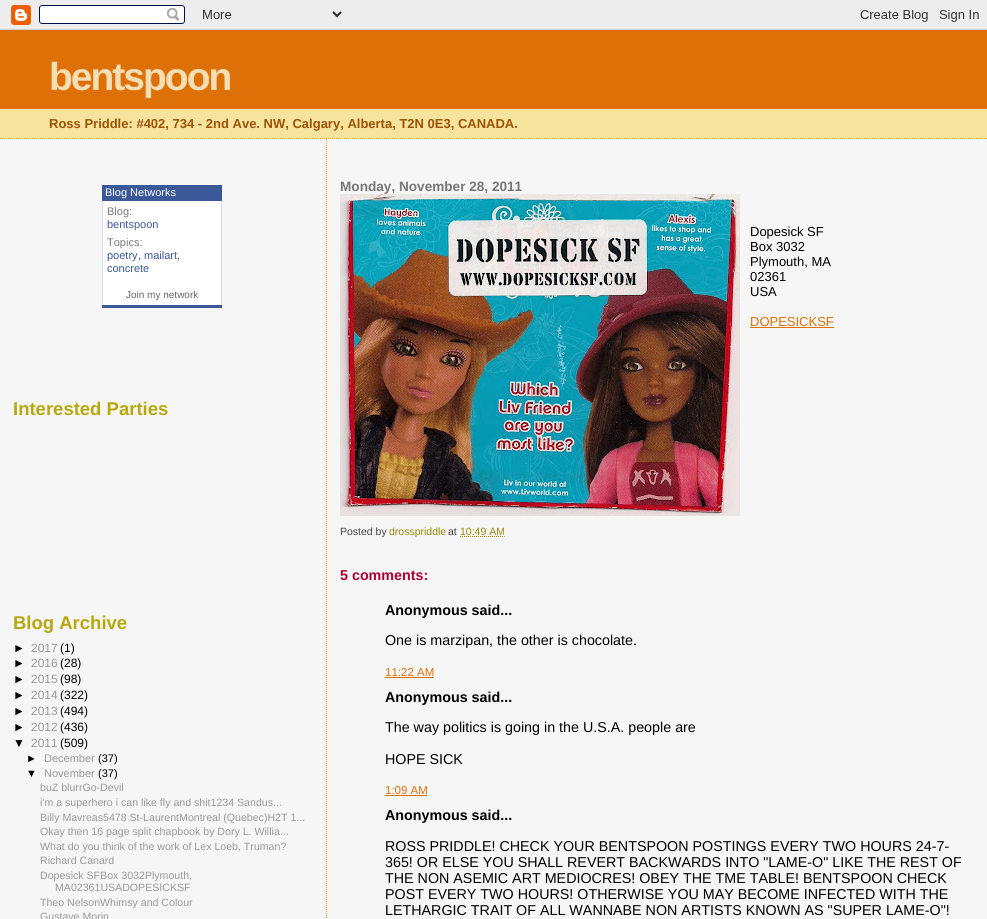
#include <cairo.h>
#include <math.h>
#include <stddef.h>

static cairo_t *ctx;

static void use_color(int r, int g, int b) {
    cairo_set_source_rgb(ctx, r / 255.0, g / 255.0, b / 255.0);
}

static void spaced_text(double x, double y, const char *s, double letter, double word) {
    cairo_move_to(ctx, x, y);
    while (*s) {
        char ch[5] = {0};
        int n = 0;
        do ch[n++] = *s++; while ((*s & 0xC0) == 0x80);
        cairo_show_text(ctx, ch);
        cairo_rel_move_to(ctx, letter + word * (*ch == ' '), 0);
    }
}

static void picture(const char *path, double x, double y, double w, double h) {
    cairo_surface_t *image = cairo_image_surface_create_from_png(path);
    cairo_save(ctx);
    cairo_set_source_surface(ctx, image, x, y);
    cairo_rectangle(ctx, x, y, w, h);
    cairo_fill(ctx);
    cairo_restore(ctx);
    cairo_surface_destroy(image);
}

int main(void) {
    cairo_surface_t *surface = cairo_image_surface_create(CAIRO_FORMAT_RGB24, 987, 919);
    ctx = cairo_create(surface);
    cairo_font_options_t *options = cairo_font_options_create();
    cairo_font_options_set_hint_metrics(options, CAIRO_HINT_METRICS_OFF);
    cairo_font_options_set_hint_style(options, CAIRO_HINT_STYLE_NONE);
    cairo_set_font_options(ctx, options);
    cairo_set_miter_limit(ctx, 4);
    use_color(246, 246, 246);
    cairo_paint(ctx);
    picture("img1.png", 0, 0, 987, 30);
    use_color(245, 227, 158);
    cairo_rectangle(ctx, 0, 109, 987, 30);
    cairo_fill(ctx);
    cairo_new_path(ctx);
    cairo_move_to(ctx, 0, 138.5);
    cairo_line_to(ctx, 987, 138.5);
    use_color(224, 173, 18);
    cairo_set_line_width(ctx, 1);
    cairo_set_dash(ctx, (double[]){1, 1}, 2, 0);
    cairo_stroke(ctx);
    use_color(222, 112, 8);
    cairo_rectangle(ctx, 0, 30, 987, 79);
    cairo_fill(ctx);
    cairo_select_font_face(ctx, "Liberation Sans", CAIRO_FONT_SLANT_NORMAL, CAIRO_FONT_WEIGHT_BOLD);
    cairo_set_font_size(ctx, 39);
    use_color(245, 222, 179);
    spaced_text(49, 90, "bentspoon", -2, 0);
    cairo_set_font_size(ctx, 13);
    use_color(158, 82, 5);
    cairo_move_to(ctx, 49, 128);
    cairo_show_text(ctx, "Ross Priddle: #402, 734 - 2nd Ave. NW, Calgary, Alberta, T2N 0E3, CANADA.");
    use_color(59, 89, 152);
    cairo_rectangle(ctx, 102, 185, 120, 123);
    cairo_fill(ctx);
    cairo_select_font_face(ctx, "Liberation Sans", CAIRO_FONT_SLANT_NORMAL, CAIRO_FONT_WEIGHT_NORMAL);
    cairo_set_font_size(ctx, 11);
    use_color(255, 255, 255);
    cairo_move_to(ctx, 105, 196);
    cairo_show_text(ctx, "Blog Networks");
    cairo_rectangle(ctx, 103, 201, 118, 104);
    cairo_fill(ctx);
    use_color(216, 223, 234);
    cairo_rectangle(ctx, 221, 201, 1, 104);
    cairo_fill(ctx);
    cairo_rectangle(ctx, 102, 201, 1, 104);
    cairo_fill(ctx);
    use_color(119, 119, 119);
    cairo_move_to(ctx, 107, 215);
    cairo_show_text(ctx, "Blog:");
    use_color(59, 89, 152);
    cairo_move_to(ctx, 107, 228);
    cairo_show_text(ctx, "bentspoon");
    use_color(119, 119, 119);
    cairo_move_to(ctx, 107, 246);
    cairo_show_text(ctx, "Topics:");
    use_color(59, 89, 152);
    cairo_move_to(ctx, 107, 259);
    cairo_show_text(ctx, "poetry");
    use_color(68, 68, 68);
    cairo_move_to(ctx, 138, 259);
    cairo_show_text(ctx, ",");
    use_color(59, 89, 152);
    cairo_move_to(ctx, 144, 259);
    cairo_show_text(ctx, "mailart");
    use_color(68, 68, 68);
    cairo_move_to(ctx, 177, 259);
    cairo_show_text(ctx, ",");
    use_color(59, 89, 152);
    cairo_move_to(ctx, 107, 272);
    cairo_show_text(ctx, "concrete");
    cairo_set_font_size(ctx, 10);
    use_color(102, 102, 102);
    cairo_move_to(ctx, 126, 298);
    cairo_show_text(ctx, "Join my network");
    cairo_select_font_face(ctx, "Liberation Sans", CAIRO_FONT_SLANT_NORMAL, CAIRO_FONT_WEIGHT_BOLD);
    cairo_set_font_size(ctx, 18.5);
    use_color(184, 168, 13);
    cairo_move_to(ctx, 13, 415);
    cairo_show_text(ctx, "Interested Parties");
    cairo_move_to(ctx, 13, 629);
    cairo_show_text(ctx, "Blog Archive");
    cairo_select_font_face(ctx, "Liberation Sans", CAIRO_FONT_SLANT_NORMAL, CAIRO_FONT_WEIGHT_NORMAL);
    cairo_set_font_size(ctx, 12);
    use_color(0, 0, 0);
    cairo_move_to(ctx, 13, 652);
    cairo_show_text(ctx, "►");
    use_color(153, 153, 153);
    cairo_move_to(ctx, 31, 652);
    cairo_show_text(ctx, "2017");
    use_color(0, 0, 0);
    cairo_move_to(ctx, 60, 652);
    cairo_show_text(ctx, "(1)");
    cairo_move_to(ctx, 13, 667);
    cairo_show_text(ctx, "►");
    use_color(153, 153, 153);
    cairo_move_to(ctx, 31, 667);
    cairo_show_text(ctx, "2016");
    use_color(0, 0, 0);
    cairo_move_to(ctx, 60, 667);
    cairo_show_text(ctx, "(28)");
    cairo_move_to(ctx, 13, 683);
    cairo_show_text(ctx, "►");
    use_color(153, 153, 153);
    cairo_move_to(ctx, 31, 683);
    cairo_show_text(ctx, "2015");
    use_color(0, 0, 0);
    cairo_move_to(ctx, 60, 683);
    cairo_show_text(ctx, "(98)");
    cairo_move_to(ctx, 13, 699);
    cairo_show_text(ctx, "►");
    use_color(153, 153, 153);
    cairo_move_to(ctx, 31, 699);
    cairo_show_text(ctx, "2014");
    use_color(0, 0, 0);
    cairo_move_to(ctx, 60, 699);
    cairo_show_text(ctx, "(322)");
    cairo_move_to(ctx, 13, 715);
    cairo_show_text(ctx, "►");
    use_color(153, 153, 153);
    cairo_move_to(ctx, 31, 715);
    cairo_show_text(ctx, "2013");
    use_color(0, 0, 0);
    cairo_move_to(ctx, 60, 715);
    cairo_show_text(ctx, "(494)");
    cairo_move_to(ctx, 13, 731);
    cairo_show_text(ctx, "►");
    use_color(153, 153, 153);
    cairo_move_to(ctx, 31, 731);
    cairo_show_text(ctx, "2012");
    use_color(0, 0, 0);
    cairo_move_to(ctx, 60, 731);
    cairo_show_text(ctx, "(436)");
    cairo_move_to(ctx, 13, 747);
    cairo_show_text(ctx, "▼");
    use_color(153, 153, 153);
    cairo_move_to(ctx, 31, 747);
    cairo_show_text(ctx, "2011");
    use_color(0, 0, 0);
    cairo_move_to(ctx, 60, 747);
    cairo_show_text(ctx, "(509)");
    cairo_set_font_size(ctx, 11);
    cairo_move_to(ctx, 26, 762);
    cairo_show_text(ctx, "►");
    use_color(153, 153, 153);
    cairo_move_to(ctx, 44, 762);
    cairo_show_text(ctx, "December");
    use_color(0, 0, 0);
    cairo_move_to(ctx, 98, 762);
    cairo_show_text(ctx, "(37)");
    cairo_move_to(ctx, 26, 777);
    cairo_show_text(ctx, "▼");
    use_color(153, 153, 153);
    cairo_move_to(ctx, 44, 777);
    cairo_show_text(ctx, "November");
    use_color(0, 0, 0);
    cairo_move_to(ctx, 98, 777);
    cairo_show_text(ctx, "(37)");
    cairo_set_font_size(ctx, 10.6);
    use_color(153, 153, 153);
    cairo_move_to(ctx, 40, 791);
    cairo_show_text(ctx, "buZ blurrGo-Devil");
    cairo_move_to(ctx, 40, 806);
    cairo_show_text(ctx, "i'm a superhero i can like fly and shit1234 Sandus...");
    cairo_move_to(ctx, 40, 821);
    cairo_show_text(ctx, "Billy Mavreas5478 St-LaurentMontreal (Quebec)H2T 1...");
    cairo_move_to(ctx, 40, 835);
    cairo_show_text(ctx, "Okay then 16 page split chapbook by Dory L. Willia...");
    cairo_move_to(ctx, 40, 850);
    cairo_show_text(ctx, "What do you think of the work of Lex Loeb, Truman?");
    cairo_move_to(ctx, 40, 864);
    cairo_show_text(ctx, "Richard Canard");
    cairo_move_to(ctx, 40, 879);
    cairo_show_text(ctx, "Dopesick SFBox 3032Plymouth,");
    cairo_move_to(ctx, 55, 891);
    cairo_show_text(ctx, "MA02361USADOPESICKSF");
    cairo_move_to(ctx, 40, 906);
    cairo_show_text(ctx, "Theo NelsonWhimsy and Colour");
    cairo_move_to(ctx, 40, 920);
    cairo_show_text(ctx, "Gustave Morin");
    cairo_new_path(ctx);
    cairo_move_to(ctx, 326.5, 139);
    cairo_line_to(ctx, 326.5, 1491);
    use_color(224, 173, 18);
    cairo_stroke(ctx);
    cairo_select_font_face(ctx, "Liberation Sans", CAIRO_FONT_SLANT_NORMAL, CAIRO_FONT_WEIGHT_BOLD);
    cairo_set_font_size(ctx, 13.6);
    use_color(119, 119, 119);
    cairo_move_to(ctx, 340, 191);
    cairo_show_text(ctx, "Monday, November 28, 2011");
    picture("img2.png", 340, 194, 400, 322);
    cairo_select_font_face(ctx, "Liberation Sans", CAIRO_FONT_SLANT_NORMAL, CAIRO_FONT_WEIGHT_NORMAL);
    cairo_set_font_size(ctx, 13);
    use_color(0, 0, 0);
    cairo_move_to(ctx, 750, 236);
    cairo_show_text(ctx, "Dopesick SF");
    cairo_move_to(ctx, 750, 251);
    cairo_show_text(ctx, "Box 3032");
    cairo_move_to(ctx, 750, 266);
    cairo_show_text(ctx, "Plymouth, MA");
    cairo_move_to(ctx, 750, 281);
    cairo_show_text(ctx, "02361");
    cairo_move_to(ctx, 750, 296);
    cairo_show_text(ctx, "USA");
    use_color(222, 112, 8);
    cairo_move_to(ctx, 750, 326);
    cairo_show_text(ctx, "DOPESICKSF");
    cairo_rectangle(ctx, 750, 327, 84, 1);
    cairo_fill(ctx);
    cairo_set_font_size(ctx, 10.5);
    use_color(68, 68, 68);
    cairo_move_to(ctx, 340, 535);
    cairo_show_text(ctx, "Posted by");
    use_color(150, 138, 10);
    cairo_move_to(ctx, 389, 535);
    cairo_show_text(ctx, "drosspriddle");
    use_color(68, 68, 68);
    cairo_move_to(ctx, 448, 535);
    cairo_show_text(ctx, "at");
    use_color(150, 138, 10);
    cairo_move_to(ctx, 460, 535);
    cairo_show_text(ctx, "10:49 AM");
    cairo_new_path(ctx);
    cairo_move_to(ctx, 460, 536.5);
    cairo_line_to(ctx, 504.5, 536.5);
    cairo_stroke(ctx);
    cairo_select_font_face(ctx, "Liberation Sans", CAIRO_FONT_SLANT_NORMAL, CAIRO_FONT_WEIGHT_BOLD);
    cairo_set_font_size(ctx, 14.3);
    use_color(170, 0, 51);
    cairo_move_to(ctx, 340, 580);
    cairo_show_text(ctx, "5 comments:");
    use_color(0, 0, 0);
    cairo_move_to(ctx, 385, 615);
    cairo_show_text(ctx, "Anonymous said...");
    cairo_select_font_face(ctx, "Liberation Sans", CAIRO_FONT_SLANT_NORMAL, CAIRO_FONT_WEIGHT_NORMAL);
    cairo_move_to(ctx, 385, 645);
    cairo_show_text(ctx, "One is marzipan, the other is chocolate.");
    cairo_set_font_size(ctx, 11.5);
    use_color(222, 112, 8);
    cairo_move_to(ctx, 385, 676);
    cairo_show_text(ctx, "11:22 AM");
    cairo_rectangle(ctx, 385, 677, 49, 1);
    cairo_fill(ctx);
    cairo_select_font_face(ctx, "Liberation Sans", CAIRO_FONT_SLANT_NORMAL, CAIRO_FONT_WEIGHT_BOLD);
    cairo_set_font_size(ctx, 14.3);
    use_color(0, 0, 0);
    cairo_move_to(ctx, 385, 702);
    cairo_show_text(ctx, "Anonymous said...");
    cairo_select_font_face(ctx, "Liberation Sans", CAIRO_FONT_SLANT_NORMAL, CAIRO_FONT_WEIGHT_NORMAL);
    cairo_move_to(ctx, 385, 732);
    cairo_show_text(ctx, "The way politics is going in the U.S.A. people are");
    cairo_move_to(ctx, 385, 764);
    cairo_show_text(ctx, "HOPE SICK");
    cairo_set_font_size(ctx, 11.5);
    use_color(222, 112, 8);
    cairo_move_to(ctx, 385, 794);
    cairo_show_text(ctx, "1:09 AM");
    cairo_rectangle(ctx, 385, 795, 42, 1);
    cairo_fill(ctx);
    cairo_select_font_face(ctx, "Liberation Sans", CAIRO_FONT_SLANT_NORMAL, CAIRO_FONT_WEIGHT_BOLD);
    cairo_set_font_size(ctx, 14.3);
    use_color(0, 0, 0);
    cairo_move_to(ctx, 385, 820);
    cairo_show_text(ctx, "Anonymous said...");
    cairo_select_font_face(ctx, "Liberation Sans", CAIRO_FONT_SLANT_NORMAL, CAIRO_FONT_WEIGHT_NORMAL);
    cairo_move_to(ctx, 385, 851);
    cairo_show_text(ctx, "ROSS PRIDDLE! CHECK YOUR BENTSPOON POSTINGS EVERY TWO HOURS 24-7-");
    cairo_move_to(ctx, 385, 867);
    cairo_show_text(ctx, "365! OR ELSE YOU SHALL REVERT BACKWARDS INTO \"LAME-O\" LIKE THE REST OF");
    cairo_move_to(ctx, 385, 883);
    cairo_show_text(ctx, "THE NON ASEMIC ART MEDIOCRES! OBEY THE TME TABLE! BENTSPOON CHECK");
    cairo_move_to(ctx, 385, 899);
    cairo_show_text(ctx, "POST EVERY TWO HOURS! OTHERWISE YOU MAY BECOME INFECTED WITH THE");
    cairo_move_to(ctx, 385, 915);
    cairo_show_text(ctx, "LETHARGIC TRAIT OF ALL WANNABE NON ARTISTS KNOWN AS \"SUPER LAME-O\"!");
    cairo_surface_write_to_png(surface, "result.png");
    cairo_font_options_destroy(options);
    cairo_destroy(ctx);
    cairo_surface_destroy(surface);
    return 0;
}
